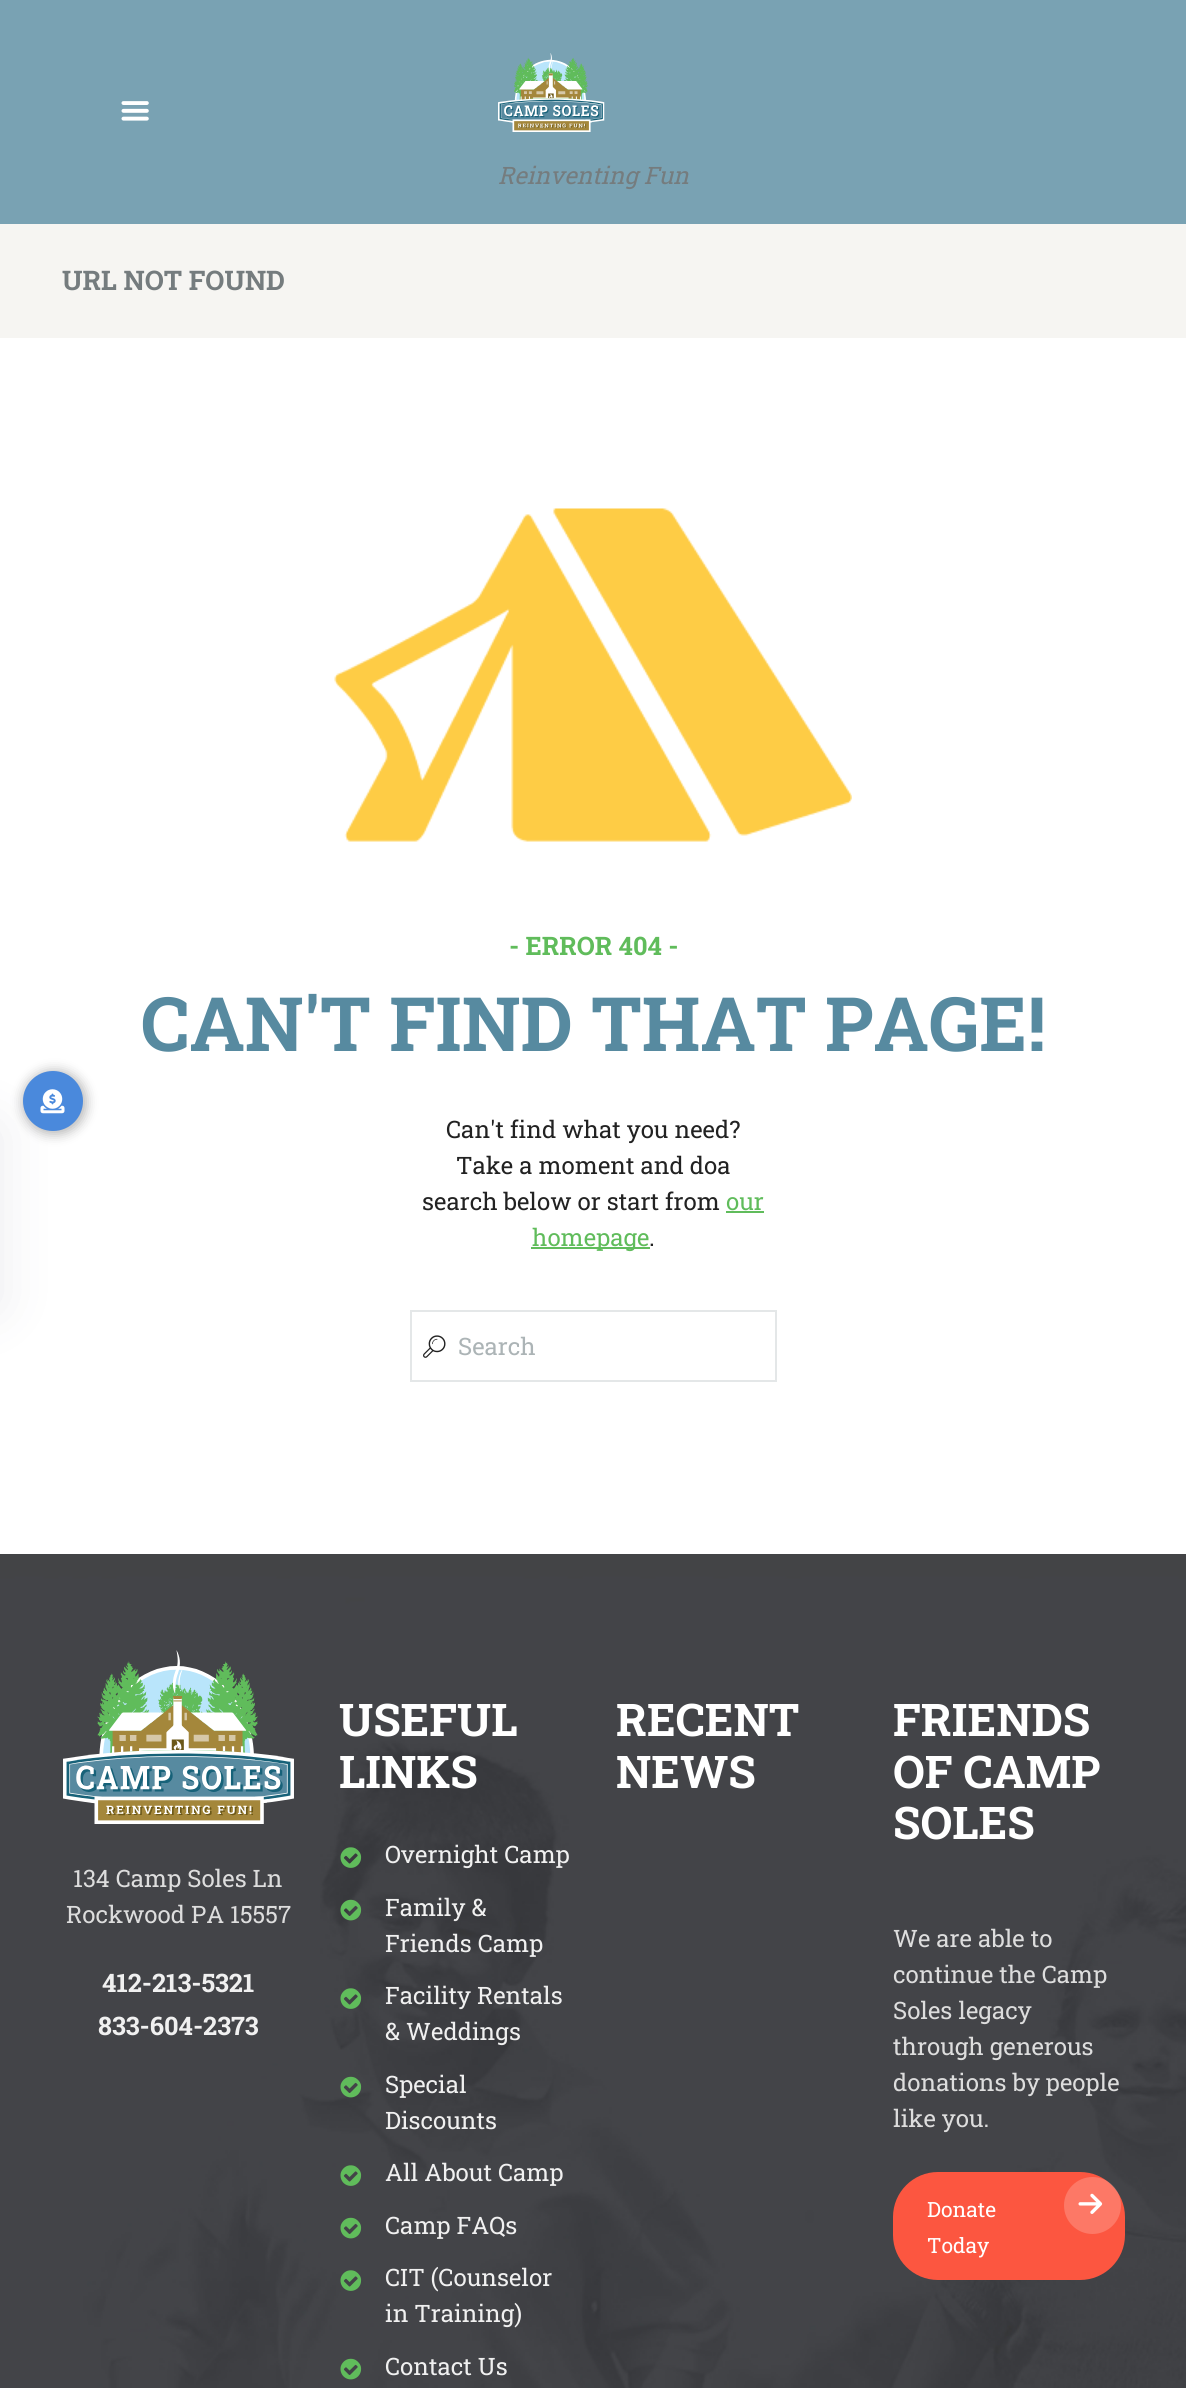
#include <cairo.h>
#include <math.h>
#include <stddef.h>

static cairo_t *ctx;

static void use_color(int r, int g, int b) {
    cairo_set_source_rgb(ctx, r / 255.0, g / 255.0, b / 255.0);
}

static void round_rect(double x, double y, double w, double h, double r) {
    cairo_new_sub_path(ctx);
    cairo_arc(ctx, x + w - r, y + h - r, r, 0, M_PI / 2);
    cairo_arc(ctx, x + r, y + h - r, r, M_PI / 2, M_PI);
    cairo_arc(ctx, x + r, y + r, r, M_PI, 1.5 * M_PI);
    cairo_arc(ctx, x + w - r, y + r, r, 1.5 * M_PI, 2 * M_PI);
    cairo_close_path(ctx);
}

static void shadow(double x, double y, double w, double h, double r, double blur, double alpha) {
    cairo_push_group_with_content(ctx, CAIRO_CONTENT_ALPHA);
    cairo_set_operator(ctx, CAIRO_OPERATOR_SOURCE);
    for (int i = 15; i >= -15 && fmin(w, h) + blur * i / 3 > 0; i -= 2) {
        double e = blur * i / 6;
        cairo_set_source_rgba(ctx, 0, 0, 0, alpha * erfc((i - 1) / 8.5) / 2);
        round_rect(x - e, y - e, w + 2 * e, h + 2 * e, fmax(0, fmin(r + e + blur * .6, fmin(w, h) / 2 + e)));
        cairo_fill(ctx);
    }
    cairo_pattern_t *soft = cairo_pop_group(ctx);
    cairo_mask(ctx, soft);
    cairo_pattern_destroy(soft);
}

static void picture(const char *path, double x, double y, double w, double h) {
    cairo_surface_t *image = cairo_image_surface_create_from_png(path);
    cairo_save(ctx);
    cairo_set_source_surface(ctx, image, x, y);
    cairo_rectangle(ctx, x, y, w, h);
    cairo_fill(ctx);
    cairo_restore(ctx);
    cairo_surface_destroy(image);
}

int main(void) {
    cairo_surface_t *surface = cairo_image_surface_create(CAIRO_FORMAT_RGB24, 1186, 2388);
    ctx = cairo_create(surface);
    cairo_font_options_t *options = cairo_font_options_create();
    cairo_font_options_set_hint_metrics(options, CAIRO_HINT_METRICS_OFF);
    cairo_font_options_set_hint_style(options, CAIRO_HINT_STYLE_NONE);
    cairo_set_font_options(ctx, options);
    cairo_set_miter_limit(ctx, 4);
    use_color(255, 255, 255);
    cairo_paint(ctx);
    use_color(121, 162, 179);
    cairo_rectangle(ctx, 0, 0, 1186, 224);
    cairo_fill(ctx);
    picture("img1.png", 121, 101, 28, 20);
    picture("img2.png", 498, 53, 107, 79);
    cairo_select_font_face(ctx, "Roboto Slab", CAIRO_FONT_SLANT_ITALIC, CAIRO_FONT_WEIGHT_NORMAL);
    cairo_set_font_size(ctx, 24);
    use_color(117, 124, 126);
    cairo_move_to(ctx, 498, 184);
    cairo_show_text(ctx, "Reinventing Fun");
    use_color(246, 245, 242);
    cairo_rectangle(ctx, 0, 224, 1186, 114);
    cairo_fill(ctx);
    cairo_select_font_face(ctx, "Roboto Slab", CAIRO_FONT_SLANT_NORMAL, CAIRO_FONT_WEIGHT_BOLD);
    cairo_set_font_size(ctx, 27);
    use_color(117, 124, 126);
    cairo_move_to(ctx, 62, 290);
    cairo_show_text(ctx, "URL NOT FOUND");
    picture("img3.png", 334, 508, 518, 334);
    cairo_set_font_size(ctx, 25.5);
    use_color(96, 188, 91);
    cairo_move_to(ctx, 509, 955);
    cairo_show_text(ctx, "- ERROR 404 -");
    cairo_set_font_size(ctx, 75);
    use_color(87, 138, 160);
    cairo_move_to(ctx, 141, 1051);
    cairo_show_text(ctx, "CAN'T FIND THAT PAGE!");
    cairo_select_font_face(ctx, "Roboto Slab", CAIRO_FONT_SLANT_NORMAL, CAIRO_FONT_WEIGHT_NORMAL);
    cairo_set_font_size(ctx, 24);
    use_color(34, 34, 34);
    cairo_move_to(ctx, 446, 1138);
    cairo_show_text(ctx, "Can't find what you need?");
    cairo_move_to(ctx, 456, 1174);
    cairo_show_text(ctx, "Take a moment and doa");
    cairo_move_to(ctx, 422, 1210);
    cairo_show_text(ctx, "search below or start from");
    use_color(96, 188, 91);
    cairo_move_to(ctx, 726, 1210);
    cairo_show_text(ctx, "our");
    cairo_rectangle(ctx, 726, 1211, 38, 2);
    cairo_fill(ctx);
    cairo_rectangle(ctx, 531, 1247, 119, 2);
    cairo_fill(ctx);
    cairo_move_to(ctx, 532, 1246);
    cairo_show_text(ctx, "homepage");
    use_color(34, 34, 34);
    cairo_move_to(ctx, 649, 1246);
    cairo_show_text(ctx, ".");
    cairo_rectangle(ctx, 411, 1311, 365, 70);
    use_color(228, 231, 232);
    cairo_stroke(ctx);
    picture("img4.png", 423, 1335, 23, 23);
    use_color(172, 180, 182);
    cairo_move_to(ctx, 458, 1355);
    cairo_show_text(ctx, "Search");
    picture("img5.png", 0, 1554, 1186, 834);
    picture("img6.png", 63, 1650, 231, 174);
    use_color(221, 221, 221);
    cairo_move_to(ctx, 73, 1887);
    cairo_show_text(ctx, "134 Camp Soles Ln");
    cairo_move_to(ctx, 66, 1923);
    cairo_show_text(ctx, "Rockwood PA 15557");
    cairo_select_font_face(ctx, "Roboto Slab", CAIRO_FONT_SLANT_NORMAL, CAIRO_FONT_WEIGHT_BOLD);
    cairo_set_font_size(ctx, 25.5);
    use_color(240, 240, 240);
    cairo_move_to(ctx, 102, 1992);
    cairo_show_text(ctx, "412-213-5321");
    cairo_move_to(ctx, 98, 2035);
    cairo_show_text(ctx, "833-604-2373");
    cairo_set_font_size(ctx, 45);
    use_color(255, 255, 255);
    cairo_move_to(ctx, 339, 1736);
    cairo_show_text(ctx, "USEFUL");
    cairo_move_to(ctx, 339, 1788);
    cairo_show_text(ctx, "LINKS");
    picture("img7.png", 340, 1847, 22, 21);
    cairo_select_font_face(ctx, "Roboto Slab", CAIRO_FONT_SLANT_NORMAL, CAIRO_FONT_WEIGHT_NORMAL);
    cairo_set_font_size(ctx, 24);
    use_color(240, 240, 240);
    cairo_move_to(ctx, 385, 1863);
    cairo_show_text(ctx, "Overnight Camp");
    picture("img8.png", 340, 1899, 22, 22);
    cairo_move_to(ctx, 385, 1916);
    cairo_show_text(ctx, "Family &");
    cairo_move_to(ctx, 385, 1952);
    cairo_show_text(ctx, "Friends Camp");
    picture("img9.png", 340, 1988, 22, 21);
    cairo_move_to(ctx, 385, 2004);
    cairo_show_text(ctx, "Facility Rentals");
    cairo_move_to(ctx, 385, 2040);
    cairo_show_text(ctx, "& Weddings");
    picture("img10.png", 340, 2076, 22, 22);
    cairo_move_to(ctx, 385, 2093);
    cairo_show_text(ctx, "Special");
    cairo_move_to(ctx, 385, 2129);
    cairo_show_text(ctx, "Discounts");
    picture("img11.png", 340, 2165, 22, 21);
    cairo_move_to(ctx, 385, 2181);
    cairo_show_text(ctx, "All About Camp");
    picture("img12.png", 340, 2217, 22, 22);
    cairo_move_to(ctx, 385, 2234);
    cairo_show_text(ctx, "Camp FAQs");
    picture("img13.png", 340, 2270, 22, 21);
    cairo_move_to(ctx, 385, 2286);
    cairo_show_text(ctx, "CIT (Counselor");
    cairo_move_to(ctx, 385, 2322);
    cairo_show_text(ctx, "in Training)");
    picture("img12.png", 340, 2358, 22, 22);
    cairo_move_to(ctx, 385, 2375);
    cairo_show_text(ctx, "Contact Us");
    cairo_select_font_face(ctx, "Roboto Slab", CAIRO_FONT_SLANT_NORMAL, CAIRO_FONT_WEIGHT_BOLD);
    cairo_set_font_size(ctx, 45);
    use_color(255, 255, 255);
    cairo_move_to(ctx, 616, 1736);
    cairo_show_text(ctx, "RECENT");
    cairo_move_to(ctx, 616, 1788);
    cairo_show_text(ctx, "NEWS");
    cairo_move_to(ctx, 893, 1736);
    cairo_show_text(ctx, "FRIENDS");
    cairo_move_to(ctx, 893, 1788);
    cairo_show_text(ctx, "OF CAMP");
    cairo_move_to(ctx, 893, 1839);
    cairo_show_text(ctx, "SOLES");
    use_color(50, 50, 90);
    shadow(-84, 1124, 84, 186, 6, 26, 0.1);
    use_color(1, 1, 1);
    shadow(23, 1071, 63, 63, 31.5, 6, 0.3);
    use_color(74, 137, 220);
    cairo_arc(ctx, 53, 1101, 30, 0, 2 * M_PI);
    cairo_fill(ctx);
    picture("img14.png", 40, 1089, 25, 25);
    cairo_select_font_face(ctx, "Roboto Slab", CAIRO_FONT_SLANT_NORMAL, CAIRO_FONT_WEIGHT_NORMAL);
    cairo_set_font_size(ctx, 24);
    use_color(221, 221, 221);
    cairo_move_to(ctx, 893, 1947);
    cairo_show_text(ctx, "We are able to");
    cairo_move_to(ctx, 893, 1983);
    cairo_show_text(ctx, "continue the Camp");
    cairo_move_to(ctx, 893, 2019);
    cairo_show_text(ctx, "Soles legacy");
    cairo_move_to(ctx, 893, 2055);
    cairo_show_text(ctx, "through generous");
    cairo_move_to(ctx, 893, 2091);
    cairo_show_text(ctx, "donations by people");
    cairo_move_to(ctx, 893, 2127);
    cairo_show_text(ctx, "like you.");
    use_color(252, 86, 64);
    round_rect(893, 2172, 232, 108, 45);
    cairo_fill(ctx);
    cairo_set_font_size(ctx, 21);
    use_color(255, 255, 255);
    cairo_move_to(ctx, 927, 2217);
    cairo_show_text(ctx, "Donate");
    cairo_set_source_rgba(ctx, 1, 1, 1, 0.2);
    cairo_new_path(ctx);
    cairo_arc(ctx, 1092.5, 2205.5, 28.5, 0, 2 * M_PI);
    cairo_fill(ctx);
    picture("img15.png", 1078, 2193, 25, 21);
    use_color(255, 255, 255);
    cairo_move_to(ctx, 927, 2253);
    cairo_show_text(ctx, "Today");
    cairo_surface_write_to_png(surface, "result.png");
    cairo_font_options_destroy(options);
    cairo_destroy(ctx);
    cairo_surface_destroy(surface);
    return 0;
}
